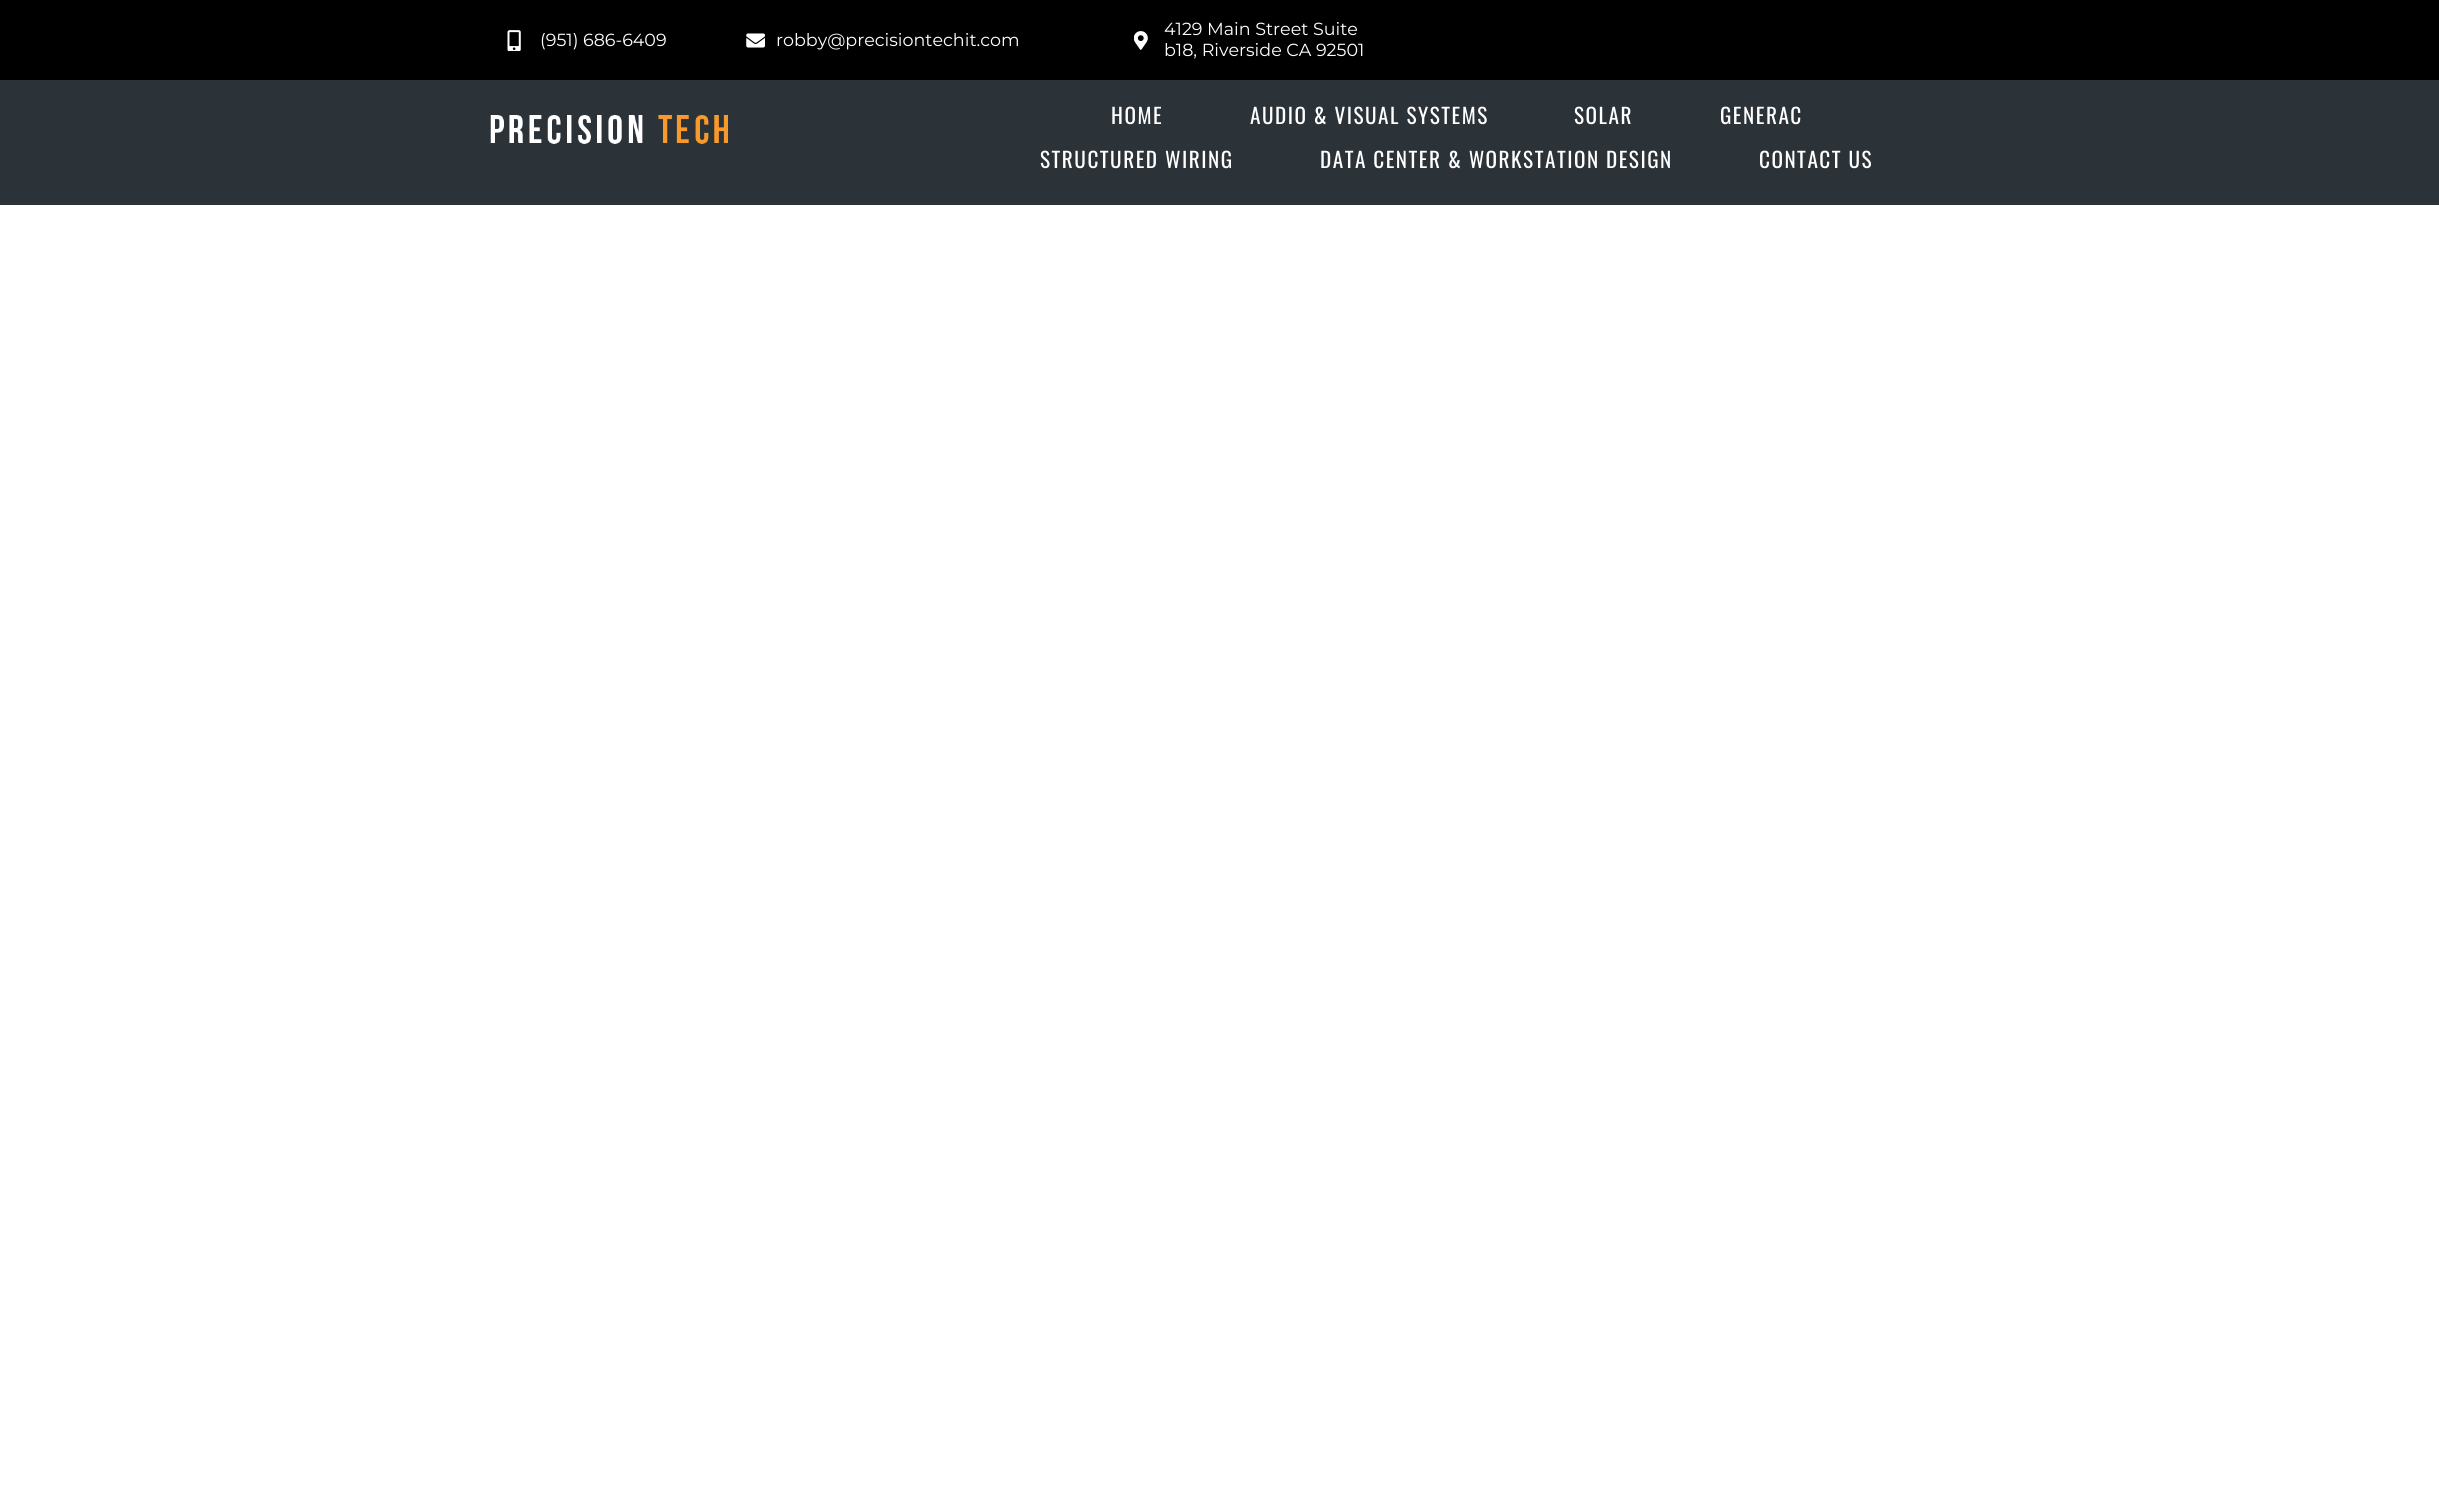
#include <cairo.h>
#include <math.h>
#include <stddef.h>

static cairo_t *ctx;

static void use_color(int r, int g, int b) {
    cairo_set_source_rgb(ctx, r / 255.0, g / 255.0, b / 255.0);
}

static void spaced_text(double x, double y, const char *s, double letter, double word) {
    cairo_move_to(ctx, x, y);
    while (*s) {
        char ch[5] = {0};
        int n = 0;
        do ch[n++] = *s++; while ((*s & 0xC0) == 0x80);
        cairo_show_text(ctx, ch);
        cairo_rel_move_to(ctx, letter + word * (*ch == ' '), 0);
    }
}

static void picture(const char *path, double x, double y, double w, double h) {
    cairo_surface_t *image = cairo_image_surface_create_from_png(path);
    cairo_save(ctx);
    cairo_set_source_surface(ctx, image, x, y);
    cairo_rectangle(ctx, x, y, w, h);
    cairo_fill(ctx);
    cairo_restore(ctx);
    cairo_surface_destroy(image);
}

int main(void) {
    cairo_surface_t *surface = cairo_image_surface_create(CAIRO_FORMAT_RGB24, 2439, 1512);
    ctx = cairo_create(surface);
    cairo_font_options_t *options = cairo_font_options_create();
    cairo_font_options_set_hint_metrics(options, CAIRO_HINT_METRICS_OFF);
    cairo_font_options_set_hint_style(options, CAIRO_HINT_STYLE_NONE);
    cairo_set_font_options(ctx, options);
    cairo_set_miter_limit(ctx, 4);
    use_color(255, 255, 255);
    cairo_paint(ctx);
    use_color(43, 50, 56);
    cairo_new_path(ctx);
    cairo_move_to(ctx, -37, 50);
    cairo_line_to(ctx, -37, 205);
    cairo_line_to(ctx, 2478, 205);
    cairo_line_to(ctx, 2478, 50);
    cairo_line_to(ctx, 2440, 50);
    cairo_line_to(ctx, 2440, 80);
    cairo_line_to(ctx, 0, 80);
    cairo_line_to(ctx, 0, 50);
    cairo_close_path(ctx);
    cairo_fill(ctx);
    use_color(0, 0, 0);
    cairo_rectangle(ctx, 0, 0, 2439, 80);
    cairo_fill(ctx);
    picture("img1.png", 507, 30, 14, 21);
    cairo_select_font_face(ctx, "Montserrat", CAIRO_FONT_SLANT_NORMAL, CAIRO_FONT_WEIGHT_NORMAL);
    cairo_set_font_size(ctx, 17.5);
    use_color(255, 255, 255);
    cairo_move_to(ctx, 540, 46);
    cairo_show_text(ctx, "(951) 686-6409");
    picture("img2.png", 746, 33, 19, 15);
    cairo_move_to(ctx, 776, 46);
    cairo_show_text(ctx, "robby@precisiontechit.com");
    picture("img3.png", 1134, 31, 14, 19);
    cairo_move_to(ctx, 1164, 35);
    cairo_show_text(ctx, "4129 Main Street Suite");
    cairo_move_to(ctx, 1164, 56);
    cairo_show_text(ctx, "b18, Riverside CA 92501");
    picture("img4.png", 490, 115, 238, 29);
    cairo_select_font_face(ctx, "Oswald", CAIRO_FONT_SLANT_NORMAL, CAIRO_FONT_WEIGHT_NORMAL);
    cairo_set_font_size(ctx, 21.25);
    spaced_text(1111, 124, "HOME", 1.5, 0);
    spaced_text(1250, 124, "AUDIO & VISUAL SYSTEMS", 1.5, 0);
    spaced_text(1574, 124, "SOLAR", 1.5, 0);
    spaced_text(1720, 124, "GENERAC", 1.5, 0);
    spaced_text(1040, 168, "STRUCTURED WIRING", 1.5, 0);
    spaced_text(1320, 168, "DATA CENTER & WORKSTATION DESIGN", 1.5, 0);
    spaced_text(1759, 168, "CONTACT US", 1.5, 0);
    cairo_surface_write_to_png(surface, "result.png");
    cairo_font_options_destroy(options);
    cairo_destroy(ctx);
    cairo_surface_destroy(surface);
    return 0;
}
